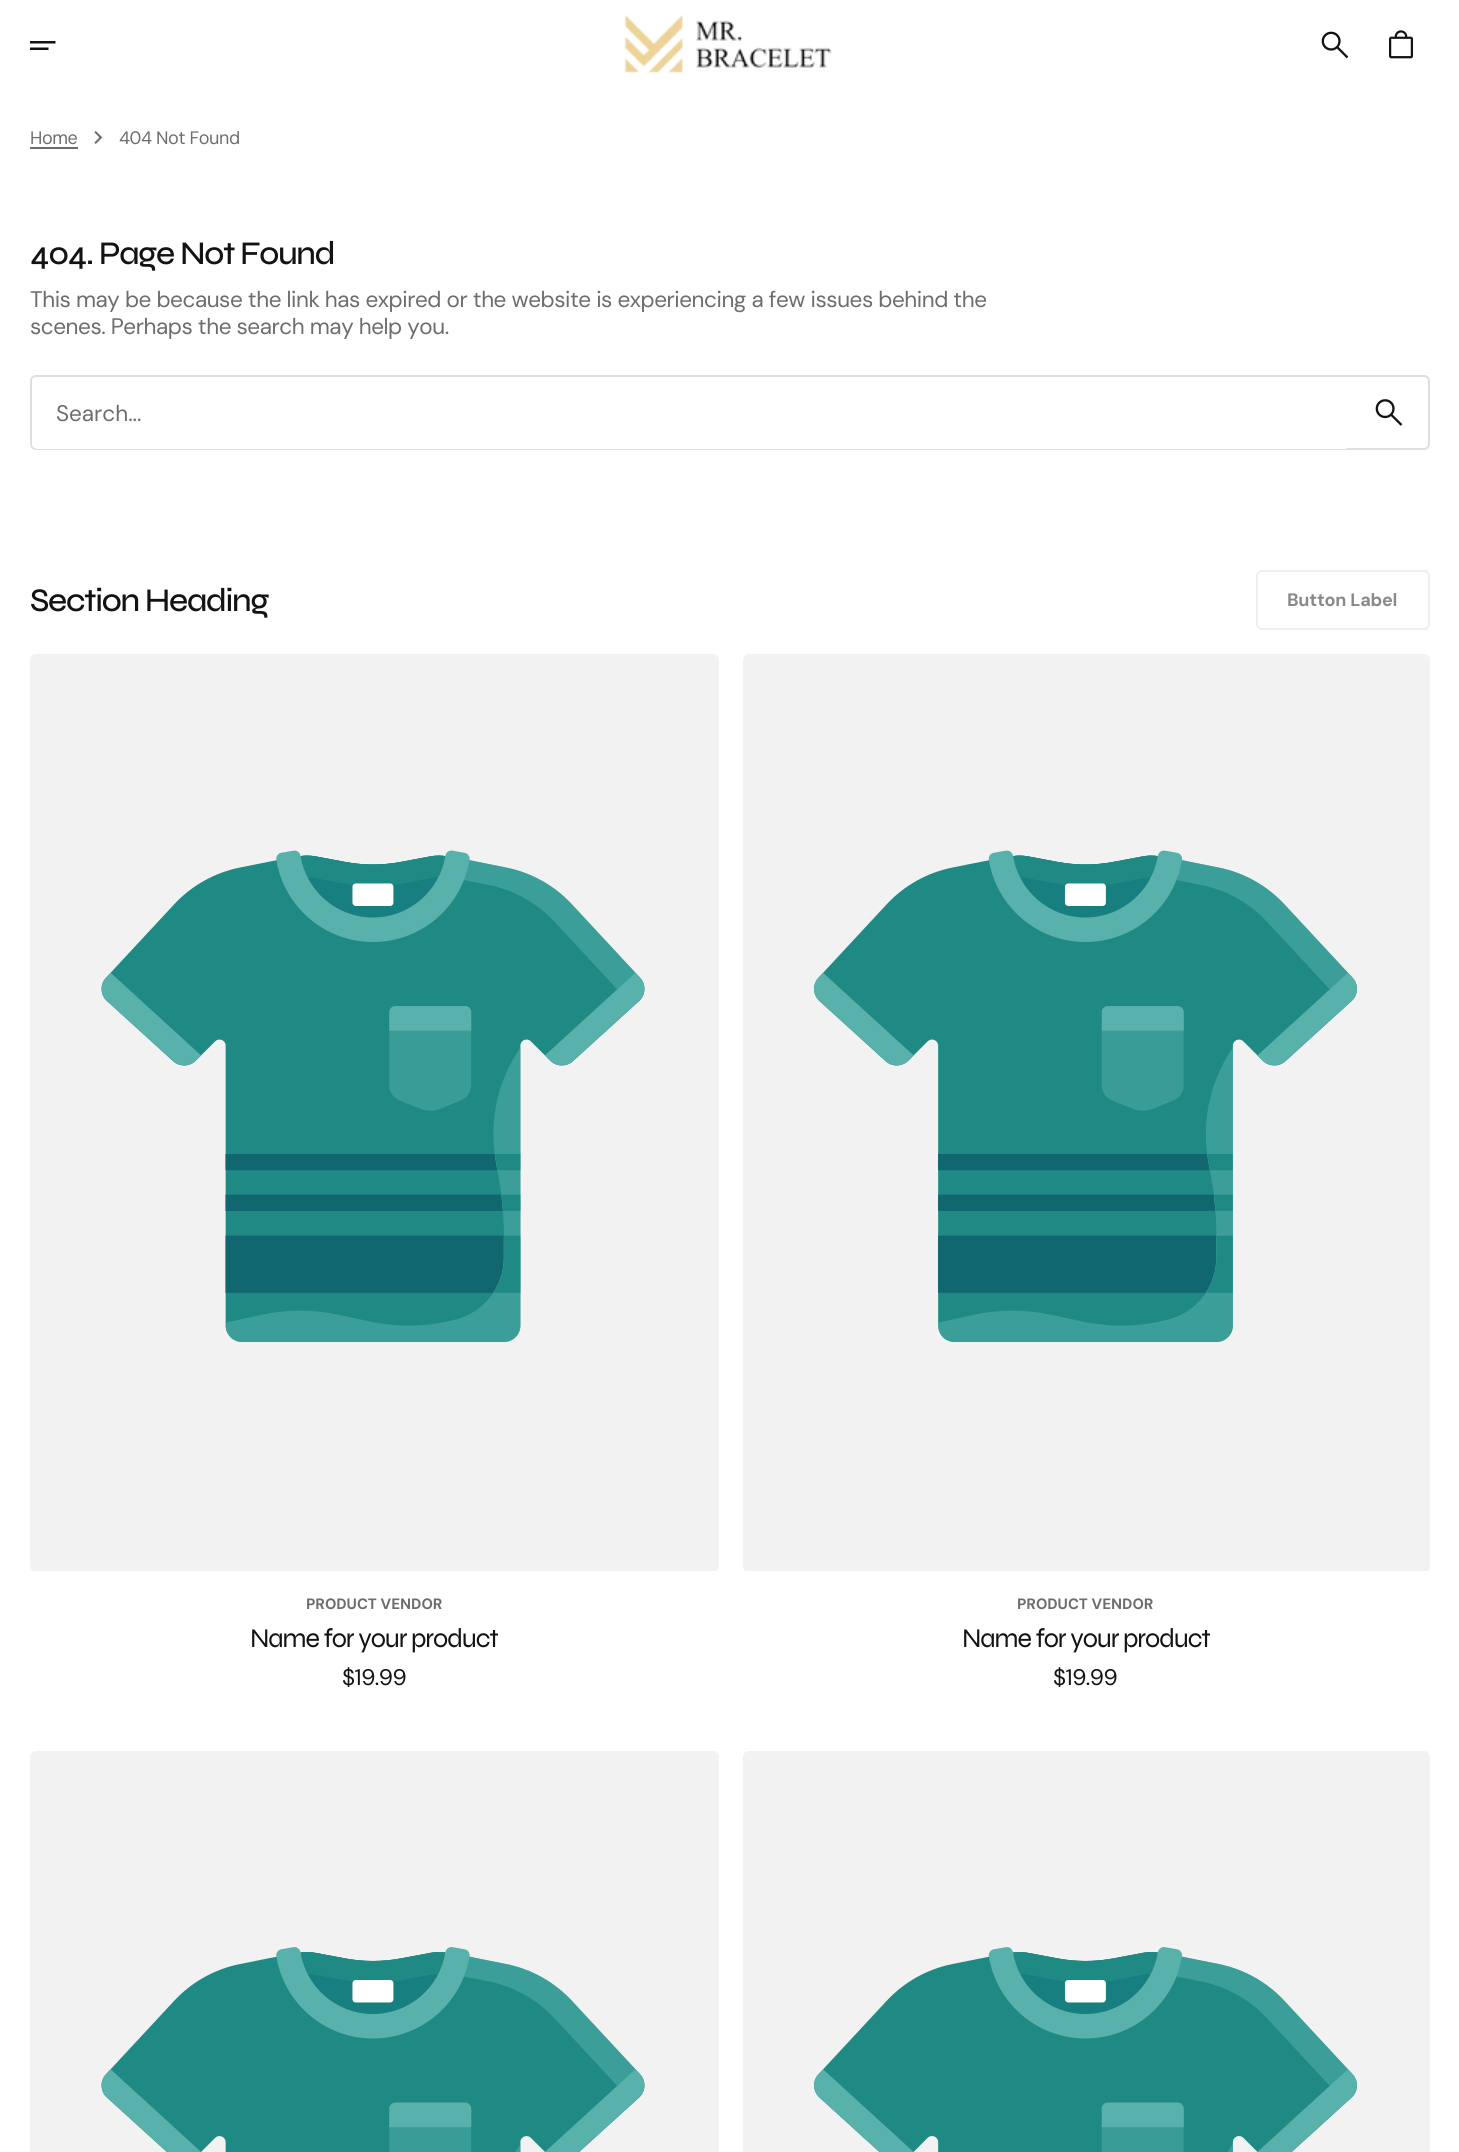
#include <cairo.h>
#include <math.h>
#include <stddef.h>

static cairo_t *ctx;

static void use_color(int r, int g, int b) {
    cairo_set_source_rgb(ctx, r / 255.0, g / 255.0, b / 255.0);
}

static void spaced_text(double x, double y, const char *s, double letter, double word) {
    cairo_move_to(ctx, x, y);
    while (*s) {
        char ch[5] = {0};
        int n = 0;
        do ch[n++] = *s++; while ((*s & 0xC0) == 0x80);
        cairo_show_text(ctx, ch);
        cairo_rel_move_to(ctx, letter + word * (*ch == ' '), 0);
    }
}

static void round_rect(double x, double y, double w, double h, double r) {
    cairo_new_sub_path(ctx);
    cairo_arc(ctx, x + w - r, y + h - r, r, 0, M_PI / 2);
    cairo_arc(ctx, x + r, y + h - r, r, M_PI / 2, M_PI);
    cairo_arc(ctx, x + r, y + r, r, M_PI, 1.5 * M_PI);
    cairo_arc(ctx, x + w - r, y + r, r, 1.5 * M_PI, 2 * M_PI);
    cairo_close_path(ctx);
}

static void picture(const char *path, double x, double y, double w, double h) {
    cairo_surface_t *image = cairo_image_surface_create_from_png(path);
    cairo_save(ctx);
    cairo_set_source_surface(ctx, image, x, y);
    cairo_rectangle(ctx, x, y, w, h);
    cairo_fill(ctx);
    cairo_restore(ctx);
    cairo_surface_destroy(image);
}

int main(void) {
    cairo_surface_t *surface = cairo_image_surface_create(CAIRO_FORMAT_RGB24, 1459, 2152);
    ctx = cairo_create(surface);
    cairo_font_options_t *options = cairo_font_options_create();
    cairo_font_options_set_hint_metrics(options, CAIRO_HINT_METRICS_OFF);
    cairo_font_options_set_hint_style(options, CAIRO_HINT_STYLE_NONE);
    cairo_set_font_options(ctx, options);
    cairo_set_miter_limit(ctx, 4);
    use_color(255, 255, 255);
    cairo_paint(ctx);
    use_color(19, 19, 19);
    cairo_set_fill_rule(ctx, CAIRO_FILL_RULE_EVEN_ODD);
    cairo_new_path(ctx);
    cairo_move_to(ctx, 55.5, 41);
    cairo_line_to(ctx, 30, 41);
    cairo_line_to(ctx, 30, 43.5);
    cairo_line_to(ctx, 55.5, 43.5);
    cairo_close_path(ctx);
    cairo_move_to(ctx, 48.5, 47.5);
    cairo_line_to(ctx, 30, 47.5);
    cairo_line_to(ctx, 30, 50);
    cairo_line_to(ctx, 48.5, 50);
    cairo_close_path(ctx);
    cairo_fill(ctx);
    picture("img1.png", 624, 15, 208, 59);
    picture("img2.png", 1321, 31, 28, 28);
    picture("img3.png", 1389, 30, 25, 29);
    cairo_select_font_face(ctx, "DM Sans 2", CAIRO_FONT_SLANT_NORMAL, CAIRO_FONT_WEIGHT_NORMAL);
    cairo_set_font_size(ctx, 18);
    use_color(109, 109, 109);
    spaced_text(30, 144, "Home", -0.45, 0);
    cairo_rectangle(ctx, 30, 147, 48, 2);
    cairo_fill(ctx);
    picture("img4.png", 94, 131, 9, 13);
    spaced_text(119, 144, "404 Not Found", -0.45, 0);
    cairo_select_font_face(ctx, "Syne Medium", CAIRO_FONT_SLANT_NORMAL, CAIRO_FONT_WEIGHT_NORMAL);
    cairo_set_font_size(ctx, 33);
    use_color(19, 19, 19);
    spaced_text(30, 264, "404. Page Not Found", -1.3, 0);
    cairo_select_font_face(ctx, "DM Sans", CAIRO_FONT_SLANT_NORMAL, CAIRO_FONT_WEIGHT_NORMAL);
    cairo_set_font_size(ctx, 22.5);
    use_color(109, 109, 109);
    spaced_text(30, 307, "This may be because the link has expired or the website is experiencing a few issues behind the", -0.45, 0);
    spaced_text(30, 334, "scenes. Perhaps the search may help you.", -0.45, 0);
    round_rect(31, 376, 1398, 73, 5);
    use_color(223, 223, 223);
    cairo_stroke(ctx);
    use_color(255, 255, 255);
    round_rect(32, 378, 1318, 71, 6);
    cairo_fill(ctx);
    use_color(109, 109, 109);
    cairo_move_to(ctx, 56, 421);
    cairo_show_text(ctx, "Search...");
    picture("img5.png", 1375, 399, 28, 27);
    cairo_select_font_face(ctx, "Syne Medium", CAIRO_FONT_SLANT_NORMAL, CAIRO_FONT_WEIGHT_NORMAL);
    cairo_set_font_size(ctx, 33);
    use_color(19, 19, 19);
    spaced_text(30, 611, "Section Heading", -1.3, 0);
    round_rect(1257, 571, 172, 58, 5);
    use_color(239, 239, 239);
    cairo_stroke(ctx);
    cairo_select_font_face(ctx, "DM Sans", CAIRO_FONT_SLANT_NORMAL, CAIRO_FONT_WEIGHT_BOLD);
    cairo_set_font_size(ctx, 18);
    use_color(137, 137, 137);
    spaced_text(1287, 606, "Button Label", -0.25, 0);
    picture("img6.png", 30, 654, 689, 917);
    cairo_select_font_face(ctx, "DM Sans 2", CAIRO_FONT_SLANT_NORMAL, CAIRO_FONT_WEIGHT_BOLD);
    cairo_set_font_size(ctx, 15);
    use_color(109, 109, 109);
    cairo_move_to(ctx, 306, 1609);
    cairo_show_text(ctx, "PRODUCT VENDOR");
    cairo_select_font_face(ctx, "Syne", CAIRO_FONT_SLANT_NORMAL, CAIRO_FONT_WEIGHT_NORMAL);
    cairo_set_font_size(ctx, 27);
    use_color(19, 19, 19);
    spaced_text(250, 1647, "Name for your product", -1.1, 0);
    cairo_select_font_face(ctx, "DM Sans", CAIRO_FONT_SLANT_NORMAL, CAIRO_FONT_WEIGHT_NORMAL);
    cairo_set_font_size(ctx, 22.5);
    spaced_text(342, 1685, "$19.99", -0.45, 0);
    picture("img7.png", 743, 654, 687, 917);
    cairo_select_font_face(ctx, "DM Sans 2", CAIRO_FONT_SLANT_NORMAL, CAIRO_FONT_WEIGHT_BOLD);
    cairo_set_font_size(ctx, 15);
    use_color(109, 109, 109);
    cairo_move_to(ctx, 1017, 1609);
    cairo_show_text(ctx, "PRODUCT VENDOR");
    cairo_select_font_face(ctx, "Syne", CAIRO_FONT_SLANT_NORMAL, CAIRO_FONT_WEIGHT_NORMAL);
    cairo_set_font_size(ctx, 27);
    use_color(19, 19, 19);
    spaced_text(962, 1647, "Name for your product", -1.1, 0);
    cairo_select_font_face(ctx, "DM Sans", CAIRO_FONT_SLANT_NORMAL, CAIRO_FONT_WEIGHT_NORMAL);
    cairo_set_font_size(ctx, 22.5);
    spaced_text(1053, 1685, "$19.99", -0.45, 0);
    picture("img8.png", 30, 1751, 689, 401);
    picture("img9.png", 743, 1751, 687, 401);
    cairo_surface_write_to_png(surface, "result.png");
    cairo_font_options_destroy(options);
    cairo_destroy(ctx);
    cairo_surface_destroy(surface);
    return 0;
}
